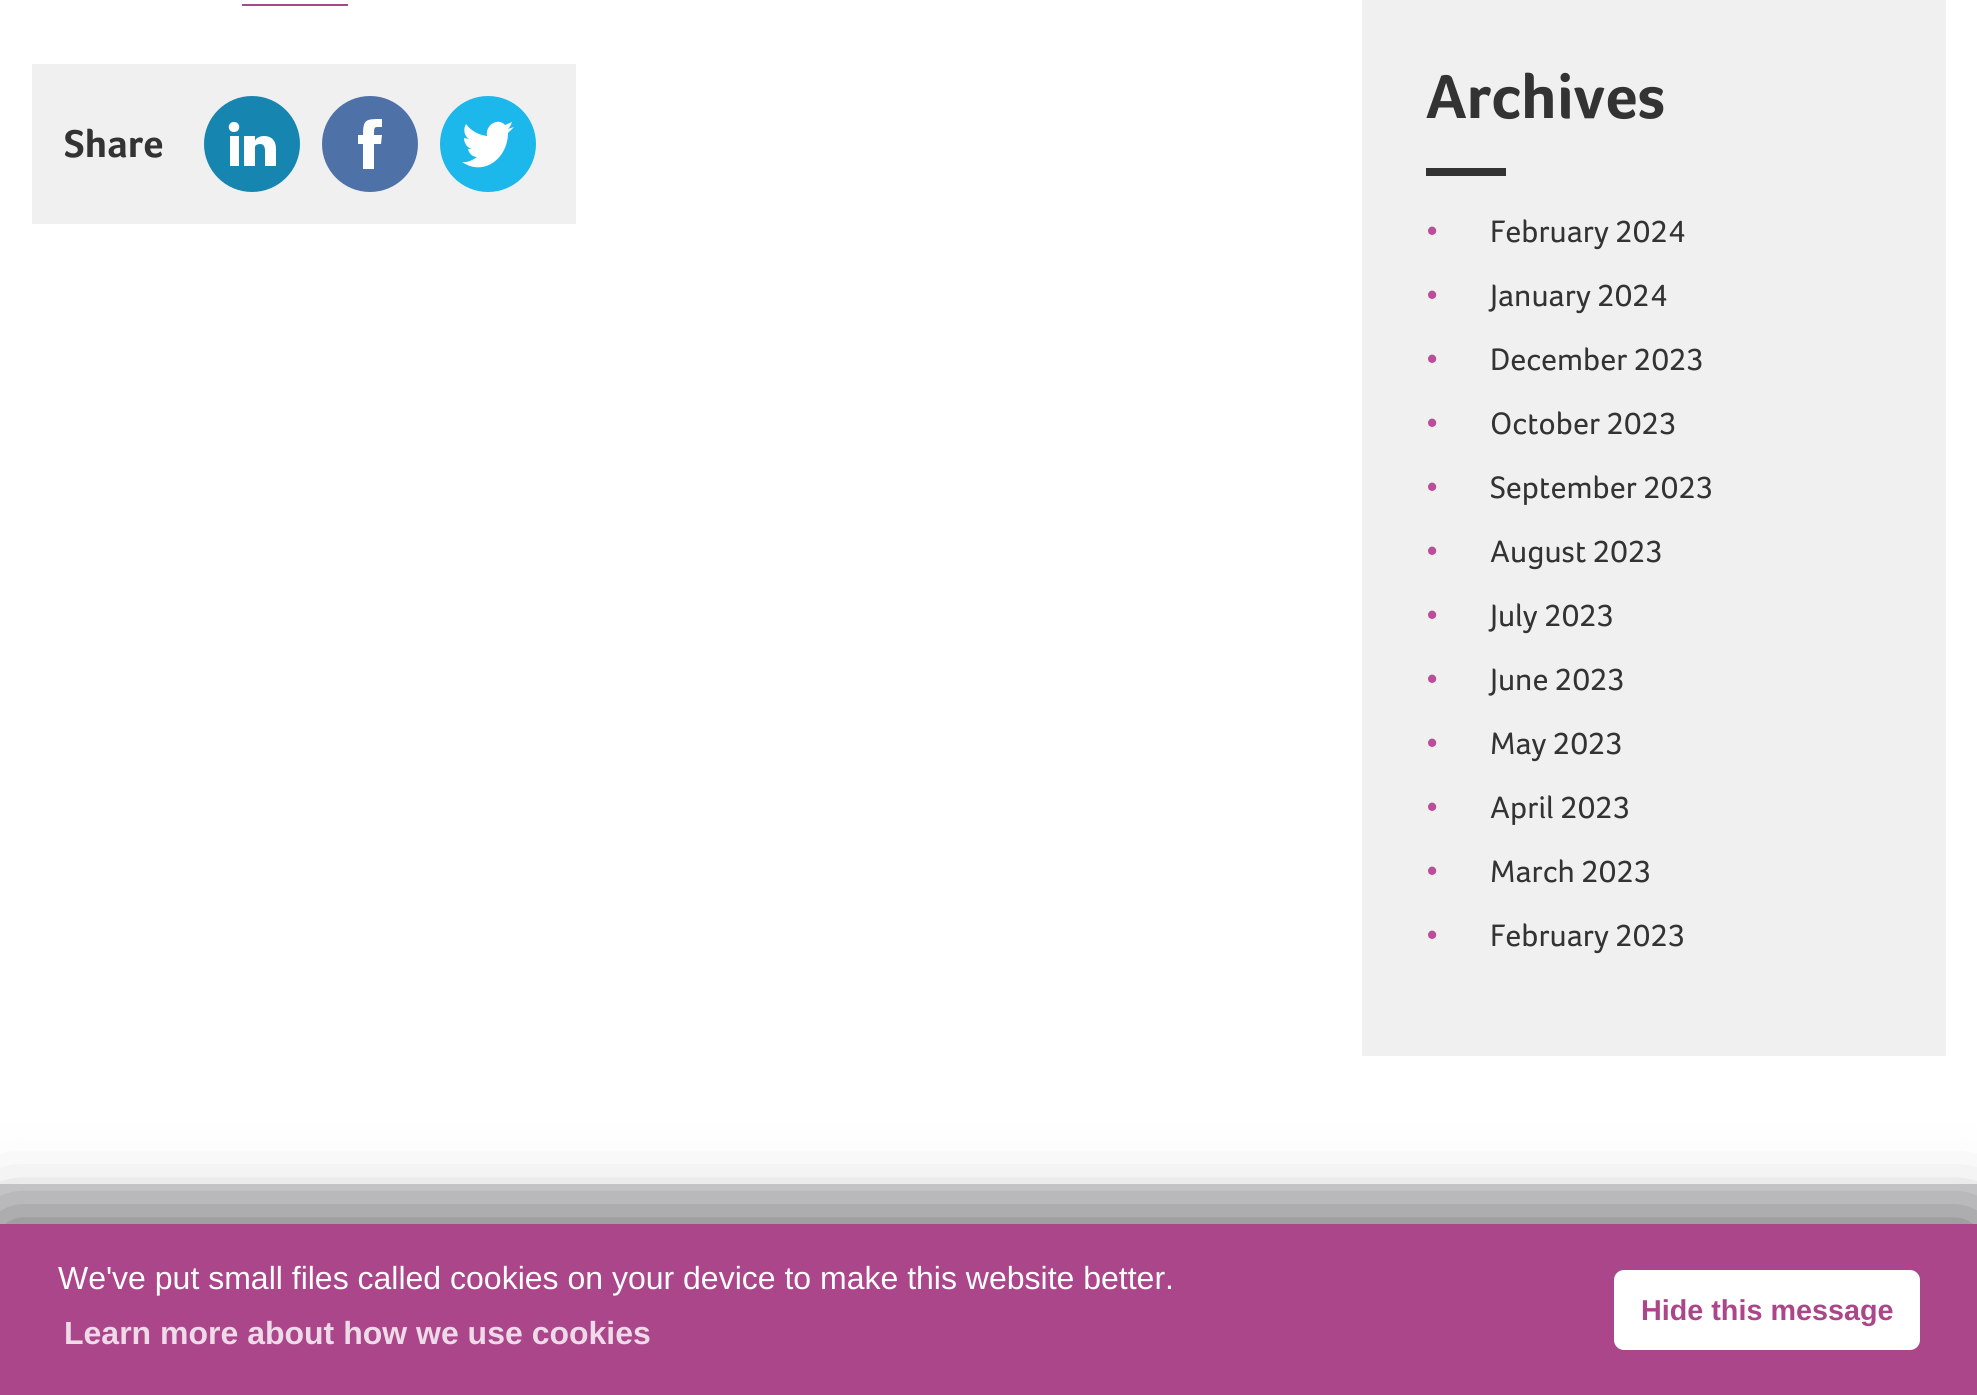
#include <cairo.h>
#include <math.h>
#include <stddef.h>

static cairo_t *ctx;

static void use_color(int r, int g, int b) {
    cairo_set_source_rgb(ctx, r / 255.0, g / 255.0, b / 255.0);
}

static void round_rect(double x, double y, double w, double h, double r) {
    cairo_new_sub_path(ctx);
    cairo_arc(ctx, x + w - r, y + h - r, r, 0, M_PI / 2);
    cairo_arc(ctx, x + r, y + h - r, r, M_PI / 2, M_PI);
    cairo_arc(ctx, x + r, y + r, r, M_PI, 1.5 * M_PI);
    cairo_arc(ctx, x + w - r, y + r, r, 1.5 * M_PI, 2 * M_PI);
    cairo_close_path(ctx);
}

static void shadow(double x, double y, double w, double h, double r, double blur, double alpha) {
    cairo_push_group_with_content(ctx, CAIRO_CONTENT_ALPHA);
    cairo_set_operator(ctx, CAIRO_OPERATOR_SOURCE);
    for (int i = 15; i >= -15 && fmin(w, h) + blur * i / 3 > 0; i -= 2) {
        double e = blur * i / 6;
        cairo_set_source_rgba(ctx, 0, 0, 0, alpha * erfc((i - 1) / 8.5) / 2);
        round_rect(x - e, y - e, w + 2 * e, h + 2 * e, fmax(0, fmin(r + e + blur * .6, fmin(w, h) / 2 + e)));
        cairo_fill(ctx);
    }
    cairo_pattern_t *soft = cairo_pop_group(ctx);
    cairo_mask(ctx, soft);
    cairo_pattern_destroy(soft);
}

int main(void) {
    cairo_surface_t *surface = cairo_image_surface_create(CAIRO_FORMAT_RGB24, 1977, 1395);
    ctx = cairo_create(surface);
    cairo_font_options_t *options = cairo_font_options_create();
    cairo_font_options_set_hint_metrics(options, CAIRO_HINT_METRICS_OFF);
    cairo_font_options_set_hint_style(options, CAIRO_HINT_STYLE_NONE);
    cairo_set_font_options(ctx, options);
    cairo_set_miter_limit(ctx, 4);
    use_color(255, 255, 255);
    cairo_paint(ctx);
    use_color(171, 70, 138);
    cairo_rectangle(ctx, 242, 4, 106, 2);
    cairo_fill(ctx);
    use_color(240, 240, 240);
    cairo_rectangle(ctx, 32, 64, 544, 160);
    cairo_fill(ctx);
    cairo_select_font_face(ctx, "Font", CAIRO_FONT_SLANT_NORMAL, CAIRO_FONT_WEIGHT_BOLD);
    cairo_set_font_size(ctx, 40);
    use_color(51, 51, 51);
    cairo_move_to(ctx, 64, 157);
    cairo_show_text(ctx, "Share");
    use_color(22, 134, 176);
    cairo_new_path(ctx);
    cairo_arc(ctx, 252, 144, 48, 0, 2 * M_PI);
    cairo_fill(ctx);
    use_color(255, 255, 255);
    cairo_new_path(ctx);
    cairo_move_to(ctx, 239, 166);
    cairo_line_to(ctx, 230, 166);
    cairo_line_to(ctx, 230, 136);
    cairo_line_to(ctx, 239, 136);
    cairo_close_path(ctx);
    cairo_move_to(ctx, 234, 132);
    cairo_curve_to(ctx, 227, 132, 227, 122, 234, 122);
    cairo_curve_to(ctx, 241, 122, 241, 132, 234, 132);
    cairo_close_path(ctx);
    cairo_move_to(ctx, 276, 166);
    cairo_line_to(ctx, 265, 166);
    cairo_line_to(ctx, 265, 156);
    cairo_curve_to(ctx, 265, 151, 266, 144, 260, 144);
    cairo_curve_to(ctx, 258, 144, 255, 145, 255, 147);
    cairo_line_to(ctx, 255, 166);
    cairo_line_to(ctx, 244, 166);
    cairo_line_to(ctx, 244, 136);
    cairo_line_to(ctx, 255, 136);
    cairo_line_to(ctx, 255, 141);
    cairo_curve_to(ctx, 255, 139, 259, 136, 264, 136);
    cairo_curve_to(ctx, 271, 136, 276, 140, 276, 149);
    cairo_close_path(ctx);
    cairo_fill(ctx);
    use_color(78, 113, 168);
    cairo_arc(ctx, 370, 144, 48, 0, 2 * M_PI);
    cairo_fill(ctx);
    use_color(255, 255, 255);
    cairo_new_path(ctx);
    cairo_move_to(ctx, 382, 135);
    cairo_line_to(ctx, 374, 135);
    cairo_curve_to(ctx, 374, 126, 374, 127, 382, 127);
    cairo_line_to(ctx, 382, 119);
    cairo_curve_to(ctx, 366, 119, 363, 119, 363, 135);
    cairo_line_to(ctx, 358, 135);
    cairo_line_to(ctx, 358, 144);
    cairo_line_to(ctx, 363, 144);
    cairo_line_to(ctx, 363, 169);
    cairo_line_to(ctx, 374, 169);
    cairo_line_to(ctx, 374, 144);
    cairo_line_to(ctx, 381, 144);
    cairo_close_path(ctx);
    cairo_fill(ctx);
    use_color(28, 183, 235);
    cairo_arc(ctx, 488, 144, 48, 0, 2 * M_PI);
    cairo_fill(ctx);
    use_color(255, 255, 255);
    cairo_new_path(ctx);
    cairo_move_to(ctx, 514, 127);
    cairo_line_to(ctx, 508, 129);
    cairo_curve_to(ctx, 510, 127, 511, 125, 512, 122);
    cairo_line_to(ctx, 505, 125);
    cairo_curve_to(ctx, 498, 117, 485, 125, 487, 136);
    cairo_curve_to(ctx, 479, 135, 471, 131, 466, 124);
    cairo_curve_to(ctx, 463, 129, 464, 136, 469, 139);
    cairo_line_to(ctx, 464, 138);
    cairo_curve_to(ctx, 464, 143, 467, 148, 472, 149);
    cairo_line_to(ctx, 468, 149);
    cairo_curve_to(ctx, 469, 154, 473, 157, 477, 157);
    cairo_curve_to(ctx, 473, 160, 467, 163, 462, 162);
    cairo_curve_to(ctx, 484, 177, 508, 158, 508, 133);
    cairo_curve_to(ctx, 510, 131, 512, 129, 514, 127);
    cairo_close_path(ctx);
    cairo_fill(ctx);
    use_color(240, 240, 240);
    cairo_rectangle(ctx, 1362, 0, 584, 1056);
    cairo_fill(ctx);
    cairo_set_font_size(ctx, 64);
    use_color(51, 51, 51);
    cairo_move_to(ctx, 1426, 118);
    cairo_show_text(ctx, "Archives");
    cairo_rectangle(ctx, 1426, 168, 80, 8);
    cairo_fill(ctx);
    cairo_select_font_face(ctx, "Font", CAIRO_FONT_SLANT_NORMAL, CAIRO_FONT_WEIGHT_NORMAL);
    cairo_set_font_size(ctx, 32);
    use_color(185, 79, 153);
    cairo_move_to(ctx, 1426, 242);
    cairo_show_text(ctx, "•");
    use_color(51, 51, 51);
    cairo_move_to(ctx, 1490, 242);
    cairo_show_text(ctx, "February 2024");
    use_color(185, 79, 153);
    cairo_move_to(ctx, 1426, 306);
    cairo_show_text(ctx, "•");
    use_color(51, 51, 51);
    cairo_move_to(ctx, 1490, 306);
    cairo_show_text(ctx, "January 2024");
    use_color(185, 79, 153);
    cairo_move_to(ctx, 1426, 370);
    cairo_show_text(ctx, "•");
    use_color(51, 51, 51);
    cairo_move_to(ctx, 1490, 370);
    cairo_show_text(ctx, "December 2023");
    use_color(185, 79, 153);
    cairo_move_to(ctx, 1426, 434);
    cairo_show_text(ctx, "•");
    use_color(51, 51, 51);
    cairo_move_to(ctx, 1490, 434);
    cairo_show_text(ctx, "October 2023");
    use_color(185, 79, 153);
    cairo_move_to(ctx, 1426, 498);
    cairo_show_text(ctx, "•");
    use_color(51, 51, 51);
    cairo_move_to(ctx, 1490, 498);
    cairo_show_text(ctx, "September 2023");
    use_color(185, 79, 153);
    cairo_move_to(ctx, 1426, 562);
    cairo_show_text(ctx, "•");
    use_color(51, 51, 51);
    cairo_move_to(ctx, 1490, 562);
    cairo_show_text(ctx, "August 2023");
    use_color(185, 79, 153);
    cairo_move_to(ctx, 1426, 626);
    cairo_show_text(ctx, "•");
    use_color(51, 51, 51);
    cairo_move_to(ctx, 1490, 626);
    cairo_show_text(ctx, "July 2023");
    use_color(185, 79, 153);
    cairo_move_to(ctx, 1426, 690);
    cairo_show_text(ctx, "•");
    use_color(51, 51, 51);
    cairo_move_to(ctx, 1490, 690);
    cairo_show_text(ctx, "June 2023");
    use_color(185, 79, 153);
    cairo_move_to(ctx, 1426, 754);
    cairo_show_text(ctx, "•");
    use_color(51, 51, 51);
    cairo_move_to(ctx, 1490, 754);
    cairo_show_text(ctx, "May 2023");
    use_color(185, 79, 153);
    cairo_move_to(ctx, 1426, 818);
    cairo_show_text(ctx, "•");
    use_color(51, 51, 51);
    cairo_move_to(ctx, 1490, 818);
    cairo_show_text(ctx, "April 2023");
    use_color(185, 79, 153);
    cairo_move_to(ctx, 1426, 882);
    cairo_show_text(ctx, "•");
    use_color(51, 51, 51);
    cairo_move_to(ctx, 1490, 882);
    cairo_show_text(ctx, "March 2023");
    use_color(185, 79, 153);
    cairo_move_to(ctx, 1426, 946);
    cairo_show_text(ctx, "•");
    use_color(51, 51, 51);
    cairo_move_to(ctx, 1490, 946);
    cairo_show_text(ctx, "February 2023");
    use_color(212, 212, 214);
    cairo_rectangle(ctx, 0, 1184, 1977, 40);
    cairo_fill(ctx);
    use_color(0, 0, 0);
    shadow(0, 1224, 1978, 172, 0, 40, 0.5);
    use_color(171, 70, 138);
    cairo_rectangle(ctx, 0, 1224, 1977, 171);
    cairo_fill(ctx);
    cairo_select_font_face(ctx, "Liberation Sans", CAIRO_FONT_SLANT_NORMAL, CAIRO_FONT_WEIGHT_NORMAL);
    use_color(255, 255, 255);
    cairo_move_to(ctx, 58, 1289);
    cairo_show_text(ctx, "We've put small files called cookies on your device to make this website better.");
    cairo_select_font_face(ctx, "Liberation Sans", CAIRO_FONT_SLANT_NORMAL, CAIRO_FONT_WEIGHT_BOLD);
    use_color(238, 218, 232);
    cairo_move_to(ctx, 64, 1344);
    cairo_show_text(ctx, "Learn more about how we use cookies");
    use_color(255, 255, 255);
    round_rect(1614, 1270, 306, 80, 10);
    cairo_fill(ctx);
    cairo_set_font_size(ctx, 28.75);
    use_color(171, 70, 138);
    cairo_move_to(ctx, 1641, 1320);
    cairo_show_text(ctx, "Hide this message");
    cairo_surface_write_to_png(surface, "result.png");
    cairo_font_options_destroy(options);
    cairo_destroy(ctx);
    cairo_surface_destroy(surface);
    return 0;
}
